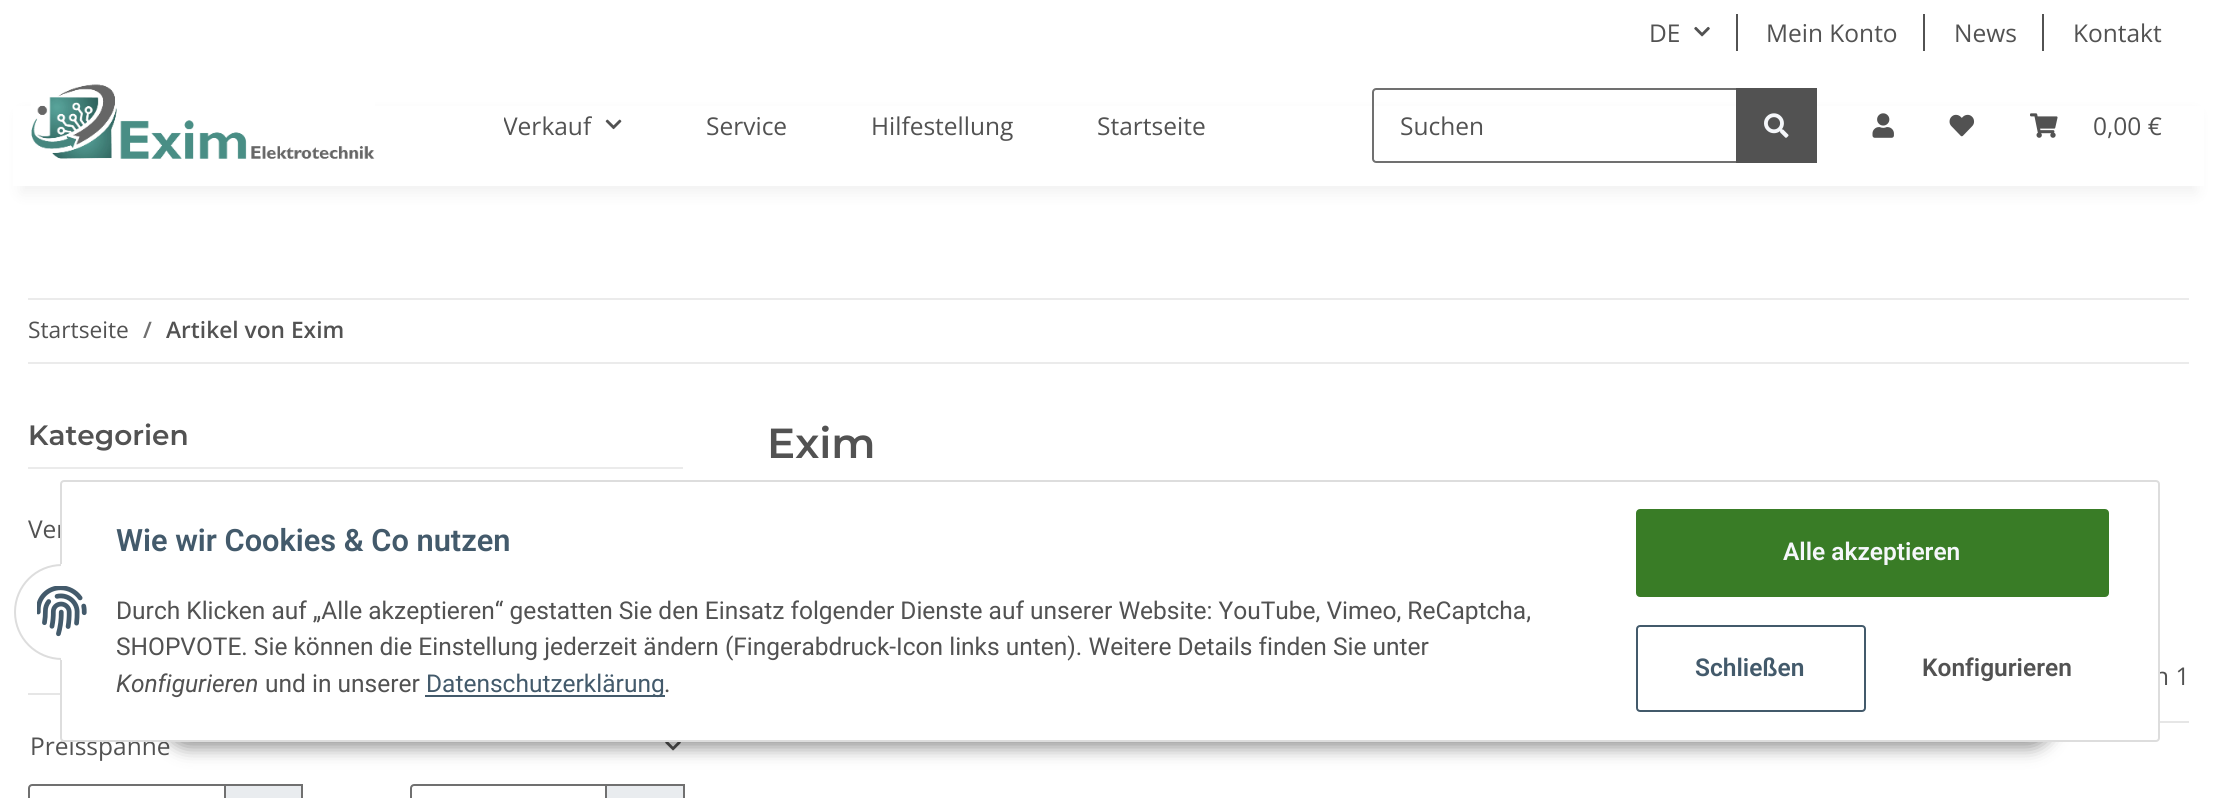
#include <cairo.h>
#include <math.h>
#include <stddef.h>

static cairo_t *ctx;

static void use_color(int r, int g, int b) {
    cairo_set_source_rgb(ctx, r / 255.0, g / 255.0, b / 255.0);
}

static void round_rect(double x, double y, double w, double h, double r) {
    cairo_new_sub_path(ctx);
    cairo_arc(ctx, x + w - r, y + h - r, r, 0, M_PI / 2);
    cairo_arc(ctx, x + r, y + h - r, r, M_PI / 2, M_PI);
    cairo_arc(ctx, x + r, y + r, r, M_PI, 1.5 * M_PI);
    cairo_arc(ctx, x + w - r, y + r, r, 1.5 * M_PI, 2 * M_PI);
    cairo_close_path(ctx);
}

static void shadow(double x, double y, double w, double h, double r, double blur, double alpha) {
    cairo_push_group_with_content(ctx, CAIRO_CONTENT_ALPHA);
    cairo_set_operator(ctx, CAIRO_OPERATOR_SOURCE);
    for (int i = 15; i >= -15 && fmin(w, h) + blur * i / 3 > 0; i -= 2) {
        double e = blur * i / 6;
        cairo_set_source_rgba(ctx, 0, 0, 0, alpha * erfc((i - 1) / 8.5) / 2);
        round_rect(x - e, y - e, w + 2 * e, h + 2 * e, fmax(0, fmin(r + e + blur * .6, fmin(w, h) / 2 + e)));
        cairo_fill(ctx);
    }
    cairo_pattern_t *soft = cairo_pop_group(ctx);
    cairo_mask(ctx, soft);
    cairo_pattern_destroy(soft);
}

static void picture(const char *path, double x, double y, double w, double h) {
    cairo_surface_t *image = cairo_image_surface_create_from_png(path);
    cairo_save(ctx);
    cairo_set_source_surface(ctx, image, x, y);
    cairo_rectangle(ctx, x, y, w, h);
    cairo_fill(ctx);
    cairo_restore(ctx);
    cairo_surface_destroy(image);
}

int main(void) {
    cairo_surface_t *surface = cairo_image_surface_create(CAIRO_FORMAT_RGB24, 2217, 798);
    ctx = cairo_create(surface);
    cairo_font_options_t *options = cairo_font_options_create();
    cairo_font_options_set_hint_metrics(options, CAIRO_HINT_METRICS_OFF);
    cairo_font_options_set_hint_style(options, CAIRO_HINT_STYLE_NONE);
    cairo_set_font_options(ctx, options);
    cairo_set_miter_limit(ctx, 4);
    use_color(255, 255, 255);
    cairo_paint(ctx);
    cairo_select_font_face(ctx, "Open Sans", CAIRO_FONT_SLANT_NORMAL, CAIRO_FONT_WEIGHT_NORMAL);
    cairo_set_font_size(ctx, 24.5);
    use_color(82, 82, 82);
    cairo_move_to(ctx, 1649, 42);
    cairo_show_text(ctx, "DE");
    picture("img1.png", 1694, 26, 16, 11);
    cairo_rectangle(ctx, 1736, 14, 2, 37);
    cairo_fill(ctx);
    cairo_move_to(ctx, 1766, 42);
    cairo_show_text(ctx, "Mein Konto");
    cairo_rectangle(ctx, 1923, 14, 2, 37);
    cairo_fill(ctx);
    cairo_move_to(ctx, 1954, 42);
    cairo_show_text(ctx, "News");
    cairo_rectangle(ctx, 2042, 14, 2, 37);
    cairo_fill(ctx);
    cairo_move_to(ctx, 2073, 42);
    cairo_show_text(ctx, "Kontakt");
    use_color(0, 0, 0);
    shadow(21, 114, 2175, 79, 0, 8, 0.06);
    use_color(255, 255, 255);
    cairo_rectangle(ctx, 13, 106, 2191, 80);
    cairo_fill(ctx);
    picture("img2.png", 31, 84, 344, 75);
    cairo_save(ctx);
    cairo_rectangle(ctx, 504, 107, 88, 37);
    cairo_clip(ctx);
    use_color(82, 82, 82);
    cairo_move_to(ctx, 503, 135);
    cairo_show_text(ctx, "Verkauf");
    cairo_restore(ctx);
    picture("img3.png", 605, 119, 17, 11);
    use_color(82, 82, 82);
    cairo_move_to(ctx, 706, 135);
    cairo_show_text(ctx, "Service");
    cairo_move_to(ctx, 871, 135);
    cairo_show_text(ctx, "Hilfestellung");
    cairo_move_to(ctx, 1097, 135);
    cairo_show_text(ctx, "Startseite");
    cairo_new_path(ctx);
    cairo_move_to(ctx, 1376, 89);
    cairo_line_to(ctx, 1737, 89);
    cairo_line_to(ctx, 1737, 162);
    cairo_line_to(ctx, 1376, 162);
    cairo_curve_to(ctx, 1374.5, 162, 1373, 160.5, 1373, 159);
    cairo_line_to(ctx, 1373, 92);
    cairo_curve_to(ctx, 1373, 90.5, 1374.5, 89, 1376, 89);
    cairo_close_path(ctx);
    use_color(112, 112, 112);
    cairo_stroke(ctx);
    use_color(82, 82, 82);
    cairo_move_to(ctx, 1400, 135);
    cairo_show_text(ctx, "Suchen");
    cairo_rectangle(ctx, 1736, 88, 81, 75);
    cairo_fill(ctx);
    picture("img4.png", 1764, 113, 25, 25);
    picture("img5.png", 1872, 113, 22, 25);
    picture("img6.png", 1949, 114, 26, 23);
    picture("img7.png", 2030, 113, 28, 25);
    cairo_move_to(ctx, 2093, 135);
    cairo_show_text(ctx, "0,00 €");
    use_color(235, 235, 235);
    cairo_rectangle(ctx, 28, 298, 2161, 2);
    cairo_fill(ctx);
    cairo_rectangle(ctx, 28, 362, 2161, 2);
    cairo_fill(ctx);
    cairo_set_font_size(ctx, 22.75);
    use_color(82, 82, 82);
    cairo_move_to(ctx, 28, 338);
    cairo_show_text(ctx, "Startseite");
    cairo_select_font_face(ctx, "Open Sans SemiBold", CAIRO_FONT_SLANT_NORMAL, CAIRO_FONT_WEIGHT_NORMAL);
    use_color(112, 112, 112);
    cairo_move_to(ctx, 143, 338);
    cairo_show_text(ctx, "/");
    use_color(82, 82, 82);
    cairo_move_to(ctx, 166, 338);
    cairo_show_text(ctx, "Artikel von Exim");
    use_color(235, 235, 235);
    cairo_rectangle(ctx, 28, 467, 655, 2);
    cairo_fill(ctx);
    cairo_select_font_face(ctx, "Montserrat SemiBold", CAIRO_FONT_SLANT_NORMAL, CAIRO_FONT_WEIGHT_NORMAL);
    cairo_set_font_size(ctx, 28);
    use_color(82, 82, 82);
    cairo_move_to(ctx, 28, 445);
    cairo_show_text(ctx, "Kategorien");
    cairo_select_font_face(ctx, "Open Sans", CAIRO_FONT_SLANT_NORMAL, CAIRO_FONT_WEIGHT_NORMAL);
    cairo_set_font_size(ctx, 24.5);
    cairo_move_to(ctx, 28, 538);
    cairo_show_text(ctx, "Ver");
    use_color(230, 230, 230);
    cairo_rectangle(ctx, 28, 693, 32, 2);
    cairo_fill(ctx);
    use_color(82, 82, 82);
    cairo_move_to(ctx, 30, 755);
    cairo_show_text(ctx, "Preisspanne");
    picture("img8.png", 665, 742, 16, 9);
    cairo_new_path(ctx);
    cairo_move_to(ctx, 32, 785);
    cairo_line_to(ctx, 225, 785);
    cairo_line_to(ctx, 225, 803);
    cairo_line_to(ctx, 32, 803);
    cairo_curve_to(ctx, 30.5, 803, 29, 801.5, 29, 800);
    cairo_line_to(ctx, 29, 788);
    cairo_curve_to(ctx, 29, 786.5, 30.5, 785, 32, 785);
    cairo_close_path(ctx);
    use_color(112, 112, 112);
    cairo_stroke(ctx);
    use_color(233, 236, 239);
    cairo_rectangle(ctx, 226, 786, 75, 12);
    cairo_fill(ctx);
    use_color(112, 112, 112);
    cairo_rectangle(ctx, 226, 784, 77, 2);
    cairo_fill(ctx);
    cairo_rectangle(ctx, 301, 784, 2, 14);
    cairo_fill(ctx);
    cairo_new_path(ctx);
    cairo_move_to(ctx, 414, 785);
    cairo_line_to(ctx, 606, 785);
    cairo_line_to(ctx, 606, 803);
    cairo_line_to(ctx, 414, 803);
    cairo_curve_to(ctx, 412.5, 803, 411, 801.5, 411, 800);
    cairo_line_to(ctx, 411, 788);
    cairo_curve_to(ctx, 411, 786.5, 412.5, 785, 414, 785);
    cairo_close_path(ctx);
    cairo_stroke(ctx);
    use_color(233, 236, 239);
    cairo_rectangle(ctx, 607, 786, 76, 12);
    cairo_fill(ctx);
    use_color(112, 112, 112);
    cairo_rectangle(ctx, 607, 784, 77, 2);
    cairo_fill(ctx);
    cairo_rectangle(ctx, 683, 784, 2, 14);
    cairo_fill(ctx);
    cairo_select_font_face(ctx, "Montserrat SemiBold", CAIRO_FONT_SLANT_NORMAL, CAIRO_FONT_WEIGHT_NORMAL);
    cairo_set_font_size(ctx, 42);
    use_color(82, 82, 82);
    cairo_move_to(ctx, 767, 458);
    cairo_show_text(ctx, "Exim");
    cairo_select_font_face(ctx, "Open Sans", CAIRO_FONT_SLANT_NORMAL, CAIRO_FONT_WEIGHT_NORMAL);
    cairo_set_font_size(ctx, 24.5);
    cairo_move_to(ctx, 2154, 685);
    cairo_show_text(ctx, "n 1");
    use_color(230, 230, 230);
    cairo_rectangle(ctx, 2160, 721, 29, 2);
    cairo_fill(ctx);
    use_color(0, 0, 0);
    shadow(165, 691, 1888, 56, 28, 9, 0.45);
    use_color(255, 255, 255);
    round_rect(61, 481, 2098, 260, 3);
    cairo_fill_preserve(ctx);
    use_color(221, 221, 221);
    cairo_stroke(ctx);
    use_color(255, 255, 255);
    cairo_arc(ctx, 62, 612, 47, 0, 2 * M_PI);
    cairo_fill_preserve(ctx);
    use_color(221, 221, 221);
    cairo_stroke(ctx);
    use_color(255, 255, 255);
    cairo_rectangle(ctx, 61, 564, 49, 96);
    cairo_fill(ctx);
    picture("img9.png", 37, 586, 50, 51);
    cairo_select_font_face(ctx, "Roboto SemiBold", CAIRO_FONT_SLANT_NORMAL, CAIRO_FONT_WEIGHT_NORMAL);
    cairo_set_font_size(ctx, 30.75);
    use_color(67, 90, 107);
    cairo_move_to(ctx, 116, 551);
    cairo_show_text(ctx, "Wie wir Cookies & Co nutzen");
    cairo_select_font_face(ctx, "Roboto", CAIRO_FONT_SLANT_NORMAL, CAIRO_FONT_WEIGHT_NORMAL);
    cairo_set_font_size(ctx, 24.5);
    use_color(82, 82, 82);
    cairo_move_to(ctx, 116, 619);
    cairo_show_text(ctx, "Durch Klicken auf „Alle akzeptieren“ gestatten Sie den Einsatz folgender Dienste auf unserer Website: YouTube, Vimeo, ReCaptcha,");
    cairo_move_to(ctx, 116, 655);
    cairo_show_text(ctx, "SHOPVOTE. Sie können die Einstellung jederzeit ändern (Fingerabdruck-Icon links unten). Weitere Details finden Sie unter");
    cairo_select_font_face(ctx, "Roboto", CAIRO_FONT_SLANT_ITALIC, CAIRO_FONT_WEIGHT_NORMAL);
    cairo_move_to(ctx, 116, 692);
    cairo_show_text(ctx, "Konfigurieren");
    cairo_select_font_face(ctx, "Roboto", CAIRO_FONT_SLANT_NORMAL, CAIRO_FONT_WEIGHT_NORMAL);
    cairo_move_to(ctx, 265, 692);
    cairo_show_text(ctx, "und in unserer");
    use_color(67, 90, 107);
    cairo_rectangle(ctx, 425, 695, 240, 2);
    cairo_fill(ctx);
    cairo_move_to(ctx, 426, 692);
    cairo_show_text(ctx, "Datenschutzerklärung");
    use_color(82, 82, 82);
    cairo_move_to(ctx, 664, 692);
    cairo_show_text(ctx, ".");
    use_color(57, 124, 38);
    round_rect(1637, 510, 471, 86, 3);
    cairo_fill_preserve(ctx);
    cairo_stroke(ctx);
    cairo_select_font_face(ctx, "Roboto SemiBold", CAIRO_FONT_SLANT_NORMAL, CAIRO_FONT_WEIGHT_NORMAL);
    use_color(245, 247, 250);
    cairo_move_to(ctx, 1783, 560);
    cairo_show_text(ctx, "Alle akzeptieren");
    round_rect(1637, 626, 228, 85, 3);
    use_color(67, 90, 107);
    cairo_stroke(ctx);
    cairo_move_to(ctx, 1695, 676);
    cairo_show_text(ctx, "Schließen");
    use_color(82, 82, 82);
    cairo_move_to(ctx, 1922, 676);
    cairo_show_text(ctx, "Konfigurieren");
    cairo_surface_write_to_png(surface, "result.png");
    cairo_font_options_destroy(options);
    cairo_destroy(ctx);
    cairo_surface_destroy(surface);
    return 0;
}
